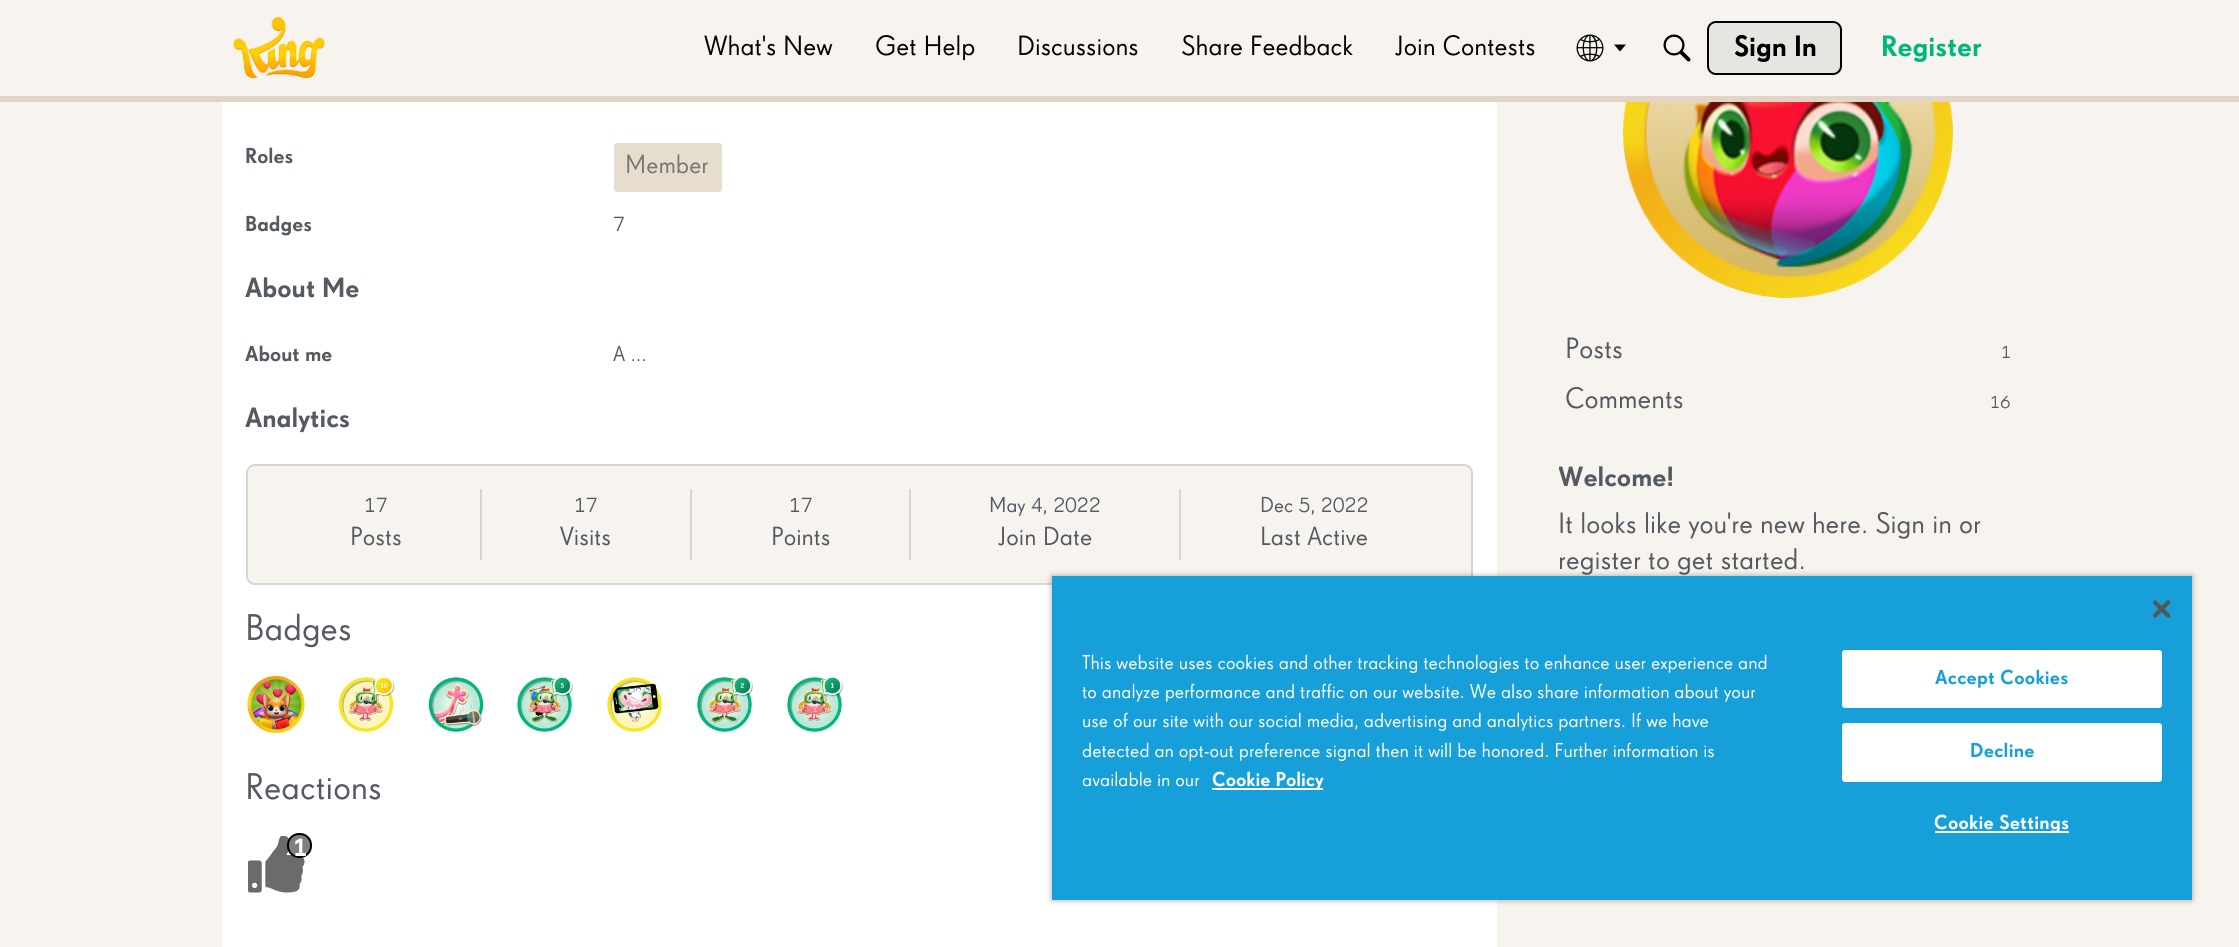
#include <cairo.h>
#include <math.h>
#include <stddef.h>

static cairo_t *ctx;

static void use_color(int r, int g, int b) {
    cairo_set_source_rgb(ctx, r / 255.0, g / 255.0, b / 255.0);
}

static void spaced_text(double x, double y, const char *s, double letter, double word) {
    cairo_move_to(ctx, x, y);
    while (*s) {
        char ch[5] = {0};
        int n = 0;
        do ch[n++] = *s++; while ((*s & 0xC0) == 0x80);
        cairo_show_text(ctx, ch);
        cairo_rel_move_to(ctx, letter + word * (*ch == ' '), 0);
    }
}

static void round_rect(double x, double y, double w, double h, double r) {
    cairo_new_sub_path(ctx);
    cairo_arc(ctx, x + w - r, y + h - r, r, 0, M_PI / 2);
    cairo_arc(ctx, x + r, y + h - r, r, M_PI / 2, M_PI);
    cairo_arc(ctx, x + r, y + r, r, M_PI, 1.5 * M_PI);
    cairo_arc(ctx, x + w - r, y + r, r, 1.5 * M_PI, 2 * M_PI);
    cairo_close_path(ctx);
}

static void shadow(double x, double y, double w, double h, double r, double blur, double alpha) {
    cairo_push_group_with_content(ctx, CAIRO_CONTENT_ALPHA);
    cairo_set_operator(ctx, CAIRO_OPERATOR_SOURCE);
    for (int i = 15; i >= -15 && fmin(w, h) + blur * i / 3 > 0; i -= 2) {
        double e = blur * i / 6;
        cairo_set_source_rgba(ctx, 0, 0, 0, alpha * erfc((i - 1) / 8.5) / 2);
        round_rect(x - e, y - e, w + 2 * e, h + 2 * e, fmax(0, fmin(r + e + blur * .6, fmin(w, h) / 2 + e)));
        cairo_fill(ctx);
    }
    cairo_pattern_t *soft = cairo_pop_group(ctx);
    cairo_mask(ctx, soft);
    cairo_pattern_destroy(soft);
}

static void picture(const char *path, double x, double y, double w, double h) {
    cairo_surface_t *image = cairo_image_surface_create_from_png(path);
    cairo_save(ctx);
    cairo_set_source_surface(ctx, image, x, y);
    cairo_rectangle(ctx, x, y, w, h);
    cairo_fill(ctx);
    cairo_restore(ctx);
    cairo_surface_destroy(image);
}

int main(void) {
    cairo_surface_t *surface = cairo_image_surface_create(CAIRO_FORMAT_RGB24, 2239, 947);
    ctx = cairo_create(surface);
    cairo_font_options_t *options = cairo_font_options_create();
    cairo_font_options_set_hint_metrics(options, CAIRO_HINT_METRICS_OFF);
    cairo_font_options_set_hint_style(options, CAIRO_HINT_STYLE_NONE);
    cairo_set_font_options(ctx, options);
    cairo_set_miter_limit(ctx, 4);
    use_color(247, 244, 239);
    cairo_paint(ctx);
    use_color(226, 213, 199);
    cairo_rectangle(ctx, 0, 96, 2239, 6);
    cairo_fill(ctx);
    picture("img1.png", 233, 16, 92, 62);
    cairo_select_font_face(ctx, "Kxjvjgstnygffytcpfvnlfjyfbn", CAIRO_FONT_SLANT_NORMAL, CAIRO_FONT_WEIGHT_NORMAL);
    cairo_set_font_size(ctx, 27);
    use_color(0, 0, 0);
    cairo_move_to(ctx, 704, 55);
    cairo_show_text(ctx, "What's New");
    cairo_move_to(ctx, 875, 55);
    cairo_show_text(ctx, "Get Help");
    cairo_move_to(ctx, 1017, 55);
    cairo_show_text(ctx, "Discussions");
    cairo_move_to(ctx, 1181, 55);
    cairo_show_text(ctx, "Share Feedback");
    cairo_move_to(ctx, 1395, 55);
    cairo_show_text(ctx, "Join Contests");
    picture("img2.png", 1576, 34, 28, 28);
    cairo_new_path(ctx);
    cairo_move_to(ctx, 1614, 44.5);
    cairo_line_to(ctx, 1626, 44.5);
    cairo_line_to(ctx, 1620, 51.5);
    cairo_close_path(ctx);
    cairo_fill(ctx);
    picture("img3.png", 1663, 34, 28, 28);
    use_color(231, 229, 225);
    round_rect(1708, 22, 133, 52, 8);
    cairo_fill_preserve(ctx);
    use_color(0, 0, 0);
    cairo_stroke(ctx);
    cairo_select_font_face(ctx, "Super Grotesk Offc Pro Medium", CAIRO_FONT_SLANT_NORMAL, CAIRO_FONT_WEIGHT_NORMAL);
    cairo_set_font_size(ctx, 28.5);
    cairo_move_to(ctx, 1734, 56);
    cairo_show_text(ctx, "Sign In");
    use_color(0, 182, 125);
    cairo_move_to(ctx, 1881, 56);
    cairo_show_text(ctx, "Register");
    use_color(255, 255, 255);
    cairo_rectangle(ctx, 222, 102, 1275, 845);
    cairo_fill(ctx);
    cairo_set_font_size(ctx, 21);
    use_color(85, 90, 98);
    cairo_move_to(ctx, 245, 163);
    cairo_show_text(ctx, "Roles");
    use_color(230, 221, 205);
    round_rect(614, 143, 108, 49, 3);
    cairo_fill(ctx);
    cairo_select_font_face(ctx, "Kxjvjgstnygffytcpfvnlfjyfbn", CAIRO_FONT_SLANT_NORMAL, CAIRO_FONT_WEIGHT_NORMAL);
    cairo_set_font_size(ctx, 25.5);
    use_color(118, 118, 118);
    cairo_move_to(ctx, 625, 173);
    cairo_show_text(ctx, "Member");
    cairo_select_font_face(ctx, "Super Grotesk Offc Pro Medium", CAIRO_FONT_SLANT_NORMAL, CAIRO_FONT_WEIGHT_NORMAL);
    cairo_set_font_size(ctx, 21);
    use_color(85, 90, 98);
    cairo_move_to(ctx, 245, 231);
    cairo_show_text(ctx, "Badges");
    cairo_select_font_face(ctx, "Kxjvjgstnygffytcpfvnlfjyfbn", CAIRO_FONT_SLANT_NORMAL, CAIRO_FONT_WEIGHT_NORMAL);
    cairo_move_to(ctx, 613, 231);
    cairo_show_text(ctx, "7");
    cairo_select_font_face(ctx, "Super Grotesk Offc Pro Medium", CAIRO_FONT_SLANT_NORMAL, CAIRO_FONT_WEIGHT_NORMAL);
    cairo_set_font_size(ctx, 27);
    cairo_move_to(ctx, 245, 297);
    cairo_show_text(ctx, "About Me");
    cairo_set_font_size(ctx, 21);
    cairo_move_to(ctx, 245, 361);
    cairo_show_text(ctx, "About me");
    cairo_select_font_face(ctx, "Kxjvjgstnygffytcpfvnlfjyfbn", CAIRO_FONT_SLANT_NORMAL, CAIRO_FONT_WEIGHT_NORMAL);
    cairo_move_to(ctx, 613, 361);
    cairo_show_text(ctx, "A ...");
    cairo_select_font_face(ctx, "Super Grotesk Offc Pro Medium", CAIRO_FONT_SLANT_NORMAL, CAIRO_FONT_WEIGHT_NORMAL);
    cairo_set_font_size(ctx, 27);
    cairo_move_to(ctx, 245, 427);
    cairo_show_text(ctx, "Analytics");
    use_color(247, 244, 239);
    round_rect(247, 465, 1225, 119, 8);
    cairo_fill_preserve(ctx);
    use_color(215, 213, 211);
    cairo_stroke(ctx);
    cairo_rectangle(ctx, 480, 489, 2, 71);
    cairo_fill(ctx);
    cairo_select_font_face(ctx, "Kxjvjgstnygffytcpfvnlfjyfbn", CAIRO_FONT_SLANT_NORMAL, CAIRO_FONT_WEIGHT_NORMAL);
    cairo_set_font_size(ctx, 21);
    use_color(85, 90, 98);
    cairo_move_to(ctx, 364, 512);
    cairo_show_text(ctx, "17");
    cairo_set_font_size(ctx, 25.5);
    cairo_move_to(ctx, 350, 545);
    cairo_show_text(ctx, "Posts");
    use_color(215, 213, 211);
    cairo_rectangle(ctx, 690, 489, 2, 71);
    cairo_fill(ctx);
    cairo_set_font_size(ctx, 21);
    use_color(85, 90, 98);
    cairo_move_to(ctx, 574, 512);
    cairo_show_text(ctx, "17");
    cairo_set_font_size(ctx, 25.5);
    cairo_move_to(ctx, 560, 545);
    cairo_show_text(ctx, "Visits");
    use_color(215, 213, 211);
    cairo_rectangle(ctx, 909, 489, 2, 71);
    cairo_fill(ctx);
    cairo_set_font_size(ctx, 21);
    use_color(85, 90, 98);
    cairo_move_to(ctx, 789, 512);
    cairo_show_text(ctx, "17");
    cairo_set_font_size(ctx, 25.5);
    cairo_move_to(ctx, 771, 545);
    cairo_show_text(ctx, "Points");
    use_color(215, 213, 211);
    cairo_rectangle(ctx, 1179, 489, 2, 71);
    cairo_fill(ctx);
    cairo_set_font_size(ctx, 21);
    use_color(85, 90, 98);
    cairo_move_to(ctx, 989, 512);
    cairo_show_text(ctx, "May 4, 2022");
    cairo_set_font_size(ctx, 25.5);
    cairo_move_to(ctx, 998, 545);
    cairo_show_text(ctx, "Join Date");
    cairo_set_font_size(ctx, 21);
    cairo_move_to(ctx, 1260, 512);
    cairo_show_text(ctx, "Dec 5, 2022");
    cairo_set_font_size(ctx, 25.5);
    cairo_move_to(ctx, 1260, 545);
    cairo_show_text(ctx, "Last Active");
    cairo_set_font_size(ctx, 36);
    cairo_move_to(ctx, 245, 640);
    cairo_show_text(ctx, "Badges");
    picture("img4.png", 247, 676, 58, 57);
    picture("img5.png", 338, 676, 57, 56);
    picture("img6.png", 428, 677, 56, 55);
    picture("img7.png", 517, 676, 56, 56);
    picture("img8.png", 607, 677, 55, 55);
    picture("img9.png", 697, 676, 56, 56);
    picture("img10.png", 787, 676, 56, 56);
    cairo_move_to(ctx, 245, 799);
    cairo_show_text(ctx, "Reactions");
    picture("img11.png", 248, 836, 57, 57);
    use_color(128, 128, 128);
    round_rect(288, 834, 23, 23, 11);
    cairo_fill_preserve(ctx);
    use_color(0, 0, 0);
    cairo_stroke(ctx);
    cairo_select_font_face(ctx, "Super Grotesk Offc Pro Medium", CAIRO_FONT_SLANT_NORMAL, CAIRO_FONT_WEIGHT_NORMAL);
    cairo_set_font_size(ctx, 25.5);
    use_color(255, 255, 255);
    spaced_text(293, 856, "1", -2, 0);
    picture("img12.png", 1623, 102, 330, 196);
    cairo_select_font_face(ctx, "Kxjvjgstnygffytcpfvnlfjyfbn", CAIRO_FONT_SLANT_NORMAL, CAIRO_FONT_WEIGHT_NORMAL);
    cairo_set_font_size(ctx, 28.5);
    use_color(85, 90, 98);
    cairo_move_to(ctx, 1565, 358);
    cairo_show_text(ctx, "Posts");
    cairo_set_font_size(ctx, 18);
    cairo_move_to(ctx, 2001, 358);
    cairo_show_text(ctx, "1");
    cairo_set_font_size(ctx, 28.5);
    cairo_move_to(ctx, 1565, 408);
    cairo_show_text(ctx, "Comments");
    cairo_set_font_size(ctx, 18);
    cairo_move_to(ctx, 1990, 408);
    cairo_show_text(ctx, "16");
    cairo_save(ctx);
    cairo_rectangle(ctx, 1559, 462, 460, 273);
    cairo_clip(ctx);
    cairo_select_font_face(ctx, "Super Grotesk Offc Pro Medium", CAIRO_FONT_SLANT_NORMAL, CAIRO_FONT_WEIGHT_NORMAL);
    cairo_set_font_size(ctx, 27);
    cairo_move_to(ctx, 1558, 486);
    cairo_show_text(ctx, "Welcome!");
    cairo_restore(ctx);
    cairo_set_font_size(ctx, 28.5);
    cairo_move_to(ctx, 1558, 533);
    cairo_show_text(ctx, "It looks like you're new here. Sign in or");
    cairo_move_to(ctx, 1558, 569);
    cairo_show_text(ctx, "register to get started.");
    use_color(0, 0, 0);
    shadow(1052, 576, 1140, 324, 0, 3, 0.35);
    use_color(22, 159, 217);
    cairo_rectangle(ctx, 1052, 576, 1140, 324);
    cairo_fill(ctx);
    picture("img13.png", 2153, 600, 18, 18);
    cairo_set_font_size(ctx, 19.5);
    use_color(255, 255, 255);
    cairo_move_to(ctx, 1082, 669);
    cairo_show_text(ctx, "This website uses cookies and other tracking technologies to enhance user experience and");
    cairo_move_to(ctx, 1082, 698);
    cairo_show_text(ctx, "to analyze performance and traffic on our website. We also share information about your");
    cairo_move_to(ctx, 1082, 727);
    cairo_show_text(ctx, "use of our site with our social media, advertising and analytics partners. If we have");
    cairo_move_to(ctx, 1082, 757);
    cairo_show_text(ctx, "detected an opt-out preference signal then it will be honored. Further information is");
    cairo_move_to(ctx, 1082, 786);
    cairo_show_text(ctx, "available in our");
    cairo_rectangle(ctx, 1212, 788, 111, 2);
    cairo_fill(ctx);
    cairo_select_font_face(ctx, "Super Grotesk Offc Pro Medium", CAIRO_FONT_SLANT_NORMAL, CAIRO_FONT_WEIGHT_NORMAL);
    cairo_move_to(ctx, 1212, 786);
    cairo_show_text(ctx, "Cookie Policy");
    round_rect(1843, 651, 318, 56, 2);
    cairo_fill_preserve(ctx);
    cairo_stroke(ctx);
    use_color(22, 159, 217);
    spaced_text(1935, 684, "Accept Cookies", 0.25, 0);
    use_color(255, 255, 255);
    round_rect(1843, 724, 318, 57, 2);
    cairo_fill_preserve(ctx);
    cairo_stroke(ctx);
    use_color(22, 159, 217);
    spaced_text(1970, 757, "Decline", 0.25, 0);
    use_color(255, 255, 255);
    cairo_rectangle(ctx, 1935, 831, 134, 2);
    cairo_fill(ctx);
    spaced_text(1934, 829, "Cookie Settings", 0.25, 0);
    cairo_surface_write_to_png(surface, "result.png");
    cairo_font_options_destroy(options);
    cairo_destroy(ctx);
    cairo_surface_destroy(surface);
    return 0;
}
